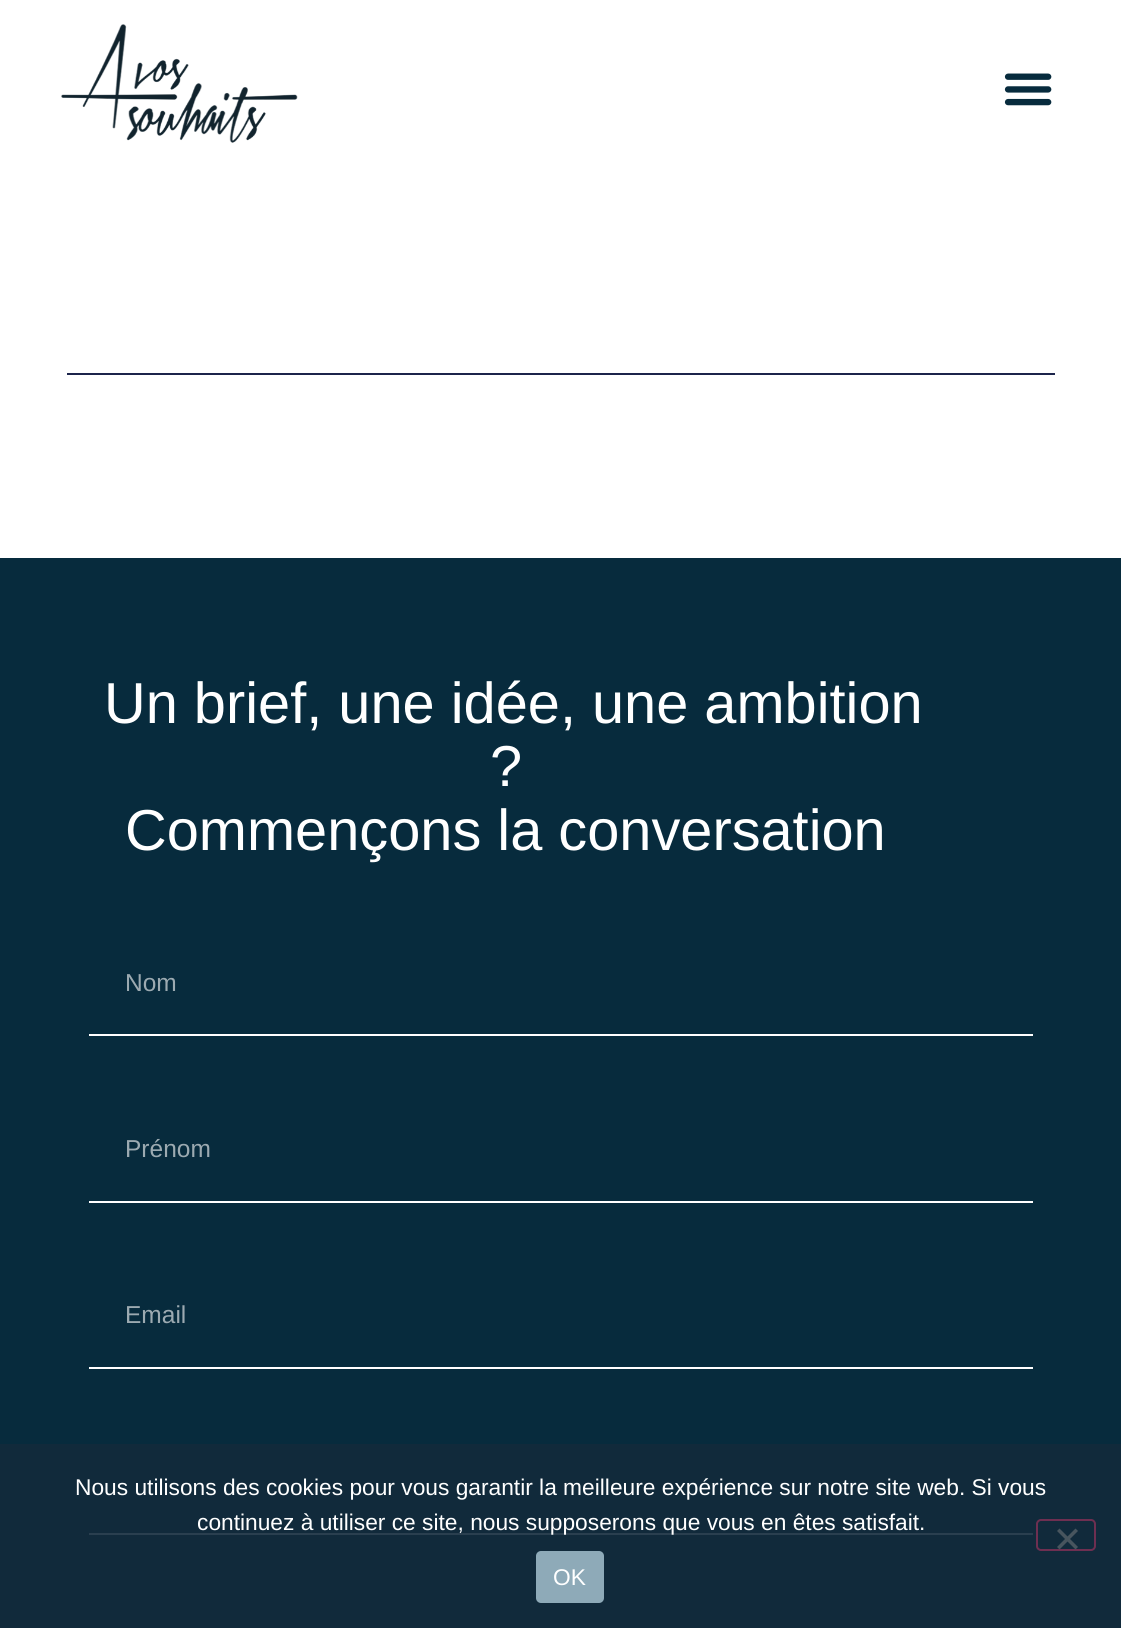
#include <cairo.h>
#include <math.h>
#include <stddef.h>

static cairo_t *ctx;

static void use_color(int r, int g, int b) {
    cairo_set_source_rgb(ctx, r / 255.0, g / 255.0, b / 255.0);
}

static void round_rect(double x, double y, double w, double h, double r) {
    cairo_new_sub_path(ctx);
    cairo_arc(ctx, x + w - r, y + h - r, r, 0, M_PI / 2);
    cairo_arc(ctx, x + r, y + h - r, r, M_PI / 2, M_PI);
    cairo_arc(ctx, x + r, y + r, r, M_PI, 1.5 * M_PI);
    cairo_arc(ctx, x + w - r, y + r, r, 1.5 * M_PI, 2 * M_PI);
    cairo_close_path(ctx);
}

static void picture(const char *path, double x, double y, double w, double h) {
    cairo_surface_t *image = cairo_image_surface_create_from_png(path);
    cairo_save(ctx);
    cairo_set_source_surface(ctx, image, x, y);
    cairo_rectangle(ctx, x, y, w, h);
    cairo_fill(ctx);
    cairo_restore(ctx);
    cairo_surface_destroy(image);
}

int main(void) {
    cairo_surface_t *surface = cairo_image_surface_create(CAIRO_FORMAT_RGB24, 1121, 1628);
    ctx = cairo_create(surface);
    cairo_font_options_t *options = cairo_font_options_create();
    cairo_font_options_set_hint_metrics(options, CAIRO_HINT_METRICS_OFF);
    cairo_font_options_set_hint_style(options, CAIRO_HINT_STYLE_NONE);
    cairo_set_font_options(ctx, options);
    cairo_set_miter_limit(ctx, 4);
    use_color(255, 255, 255);
    cairo_paint(ctx);
    picture("img1.png", 61, 24, 237, 119);
    picture("img2.png", 1004, 73, 48, 33);
    use_color(28, 36, 75);
    cairo_rectangle(ctx, 67, 373, 988, 2);
    cairo_fill(ctx);
    use_color(7, 43, 61);
    cairo_rectangle(ctx, 0, 558, 1121, 886);
    cairo_fill(ctx);
    use_color(17, 42, 59);
    cairo_rectangle(ctx, 0, 1444, 1121, 184);
    cairo_fill(ctx);
    cairo_select_font_face(ctx, "Liberation Sans", CAIRO_FONT_SLANT_NORMAL, CAIRO_FONT_WEIGHT_NORMAL);
    cairo_set_font_size(ctx, 57.75);
    use_color(255, 255, 255);
    cairo_move_to(ctx, 104, 723);
    cairo_show_text(ctx, "Un brief, une idée, une ambition");
    cairo_move_to(ctx, 490, 786);
    cairo_show_text(ctx, "?");
    cairo_move_to(ctx, 125, 850);
    cairo_show_text(ctx, "Commençons la conversation");
    cairo_rectangle(ctx, 89, 1034, 944, 2);
    cairo_fill(ctx);
    cairo_set_font_size(ctx, 24.5);
    use_color(156, 170, 177);
    cairo_move_to(ctx, 125, 991);
    cairo_show_text(ctx, "Nom");
    use_color(255, 255, 255);
    cairo_rectangle(ctx, 89, 1201, 944, 2);
    cairo_fill(ctx);
    use_color(156, 170, 177);
    cairo_move_to(ctx, 125, 1157);
    cairo_show_text(ctx, "Prénom");
    use_color(255, 255, 255);
    cairo_rectangle(ctx, 89, 1367, 944, 2);
    cairo_fill(ctx);
    use_color(156, 170, 177);
    cairo_move_to(ctx, 125, 1323);
    cairo_show_text(ctx, "Email");
    use_color(42, 63, 79);
    cairo_rectangle(ctx, 89, 1533, 944, 2);
    cairo_fill(ctx);
    cairo_set_font_size(ctx, 22.75);
    use_color(255, 255, 255);
    cairo_move_to(ctx, 75, 1495);
    cairo_show_text(ctx, "Nous utilisons des cookies pour vous garantir la meilleure expérience sur notre site web. Si vous");
    cairo_move_to(ctx, 197, 1530);
    cairo_show_text(ctx, "continuez à utiliser ce site, nous supposerons que vous en êtes satisfait.");
    round_rect(1037, 1520, 58, 30, 4);
    use_color(110, 47, 81);
    cairo_stroke(ctx);
    use_color(72, 85, 94);
    cairo_new_path(ctx);
    cairo_move_to(ctx, 1075.5, 1528.5);
    cairo_line_to(ctx, 1078, 1531);
    cairo_line_to(ctx, 1059.5, 1549.5);
    cairo_line_to(ctx, 1057, 1547);
    cairo_close_path(ctx);
    cairo_fill(ctx);
    cairo_new_path(ctx);
    cairo_move_to(ctx, 1057, 1531);
    cairo_line_to(ctx, 1059.5, 1528.5);
    cairo_line_to(ctx, 1078, 1547);
    cairo_line_to(ctx, 1075.5, 1549.5);
    cairo_close_path(ctx);
    cairo_fill(ctx);
    use_color(142, 170, 184);
    round_rect(536, 1551, 68, 52, 5);
    cairo_fill(ctx);
    use_color(255, 255, 255);
    cairo_move_to(ctx, 553, 1585);
    cairo_show_text(ctx, "OK");
    cairo_surface_write_to_png(surface, "result.png");
    cairo_font_options_destroy(options);
    cairo_destroy(ctx);
    cairo_surface_destroy(surface);
    return 0;
}
